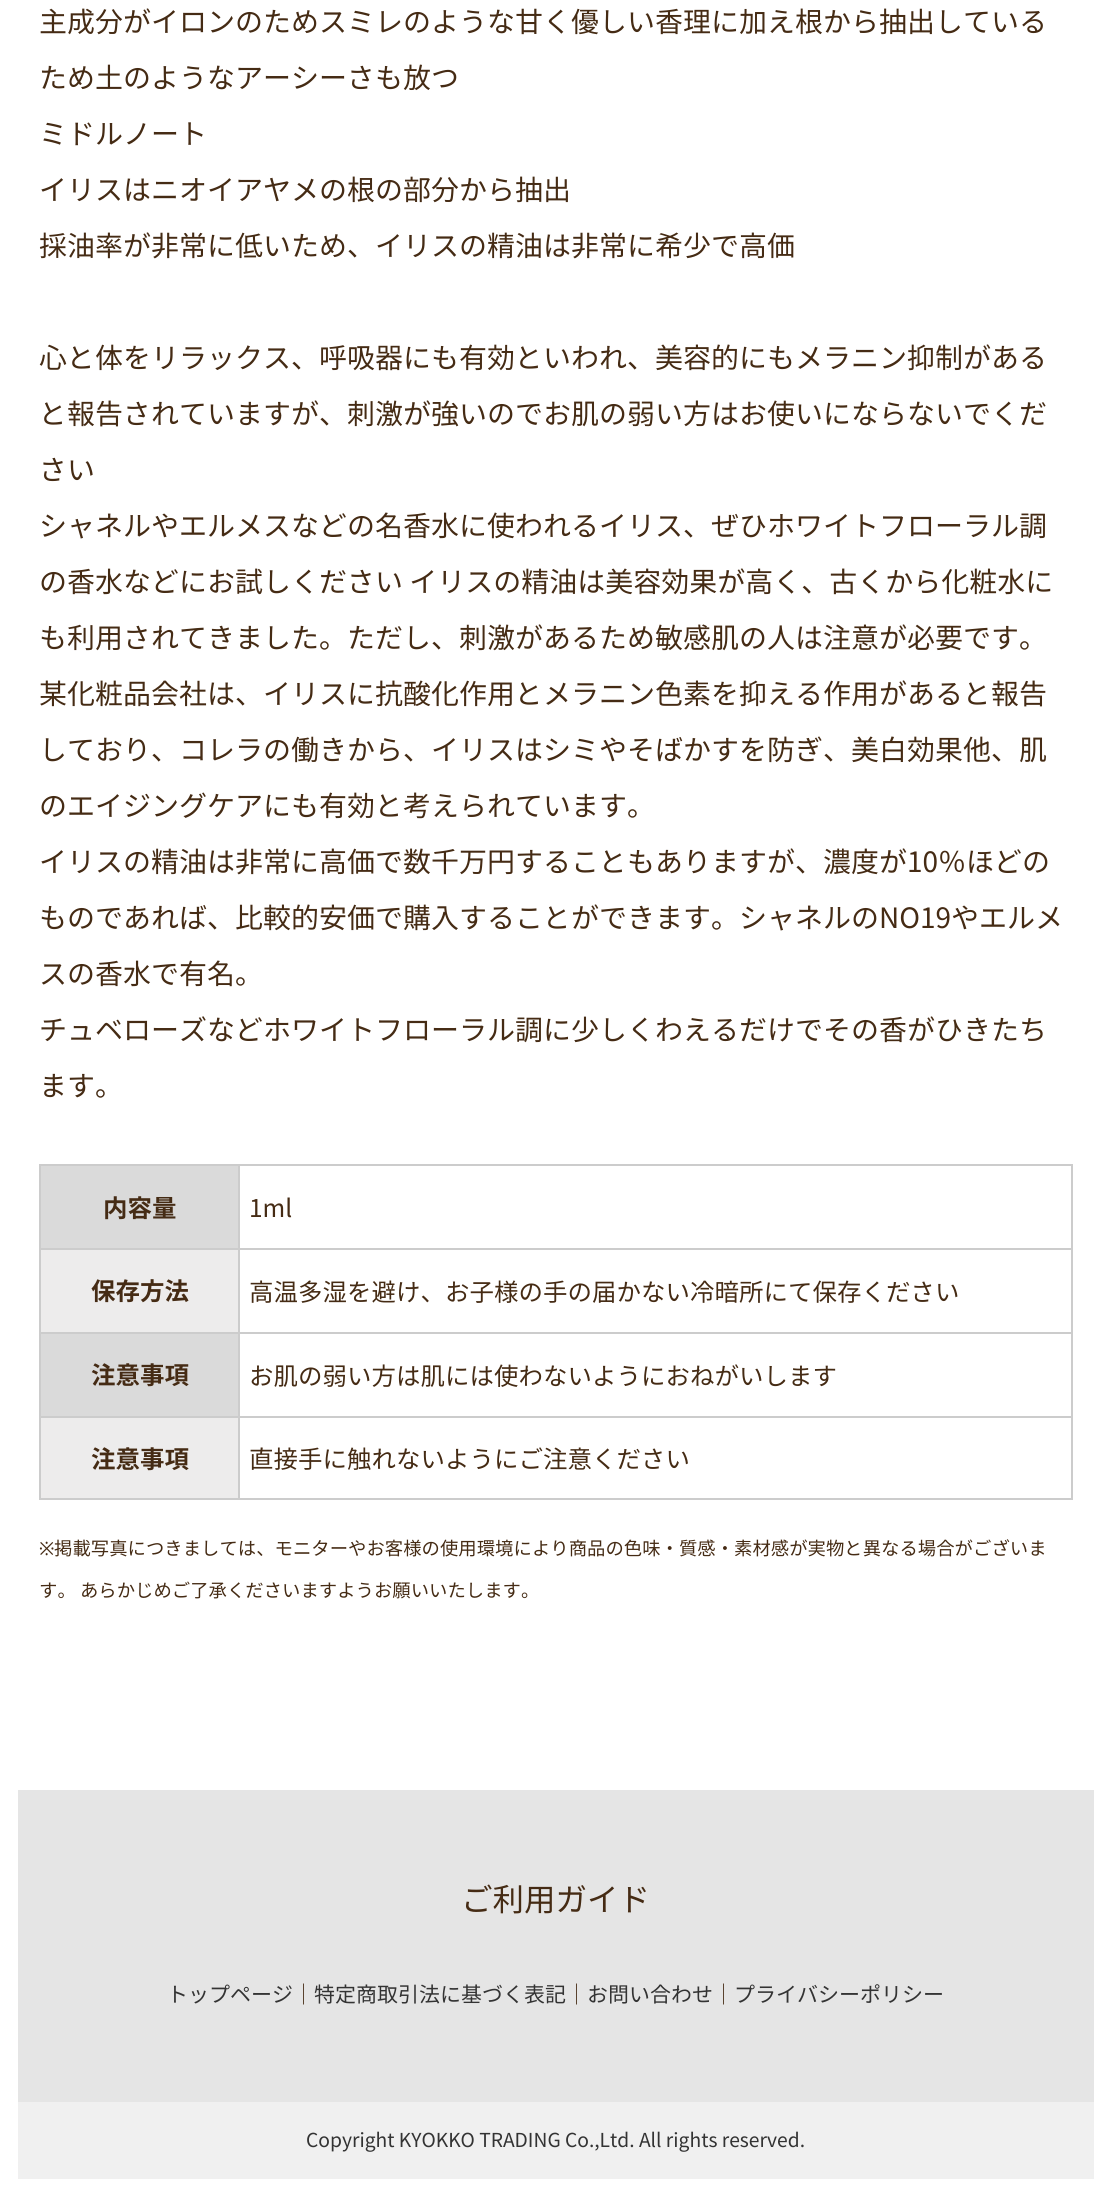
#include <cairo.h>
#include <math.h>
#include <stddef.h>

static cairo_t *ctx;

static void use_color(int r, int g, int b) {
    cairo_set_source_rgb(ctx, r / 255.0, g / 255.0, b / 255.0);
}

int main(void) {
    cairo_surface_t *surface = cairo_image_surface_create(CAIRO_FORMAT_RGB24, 1111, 2196);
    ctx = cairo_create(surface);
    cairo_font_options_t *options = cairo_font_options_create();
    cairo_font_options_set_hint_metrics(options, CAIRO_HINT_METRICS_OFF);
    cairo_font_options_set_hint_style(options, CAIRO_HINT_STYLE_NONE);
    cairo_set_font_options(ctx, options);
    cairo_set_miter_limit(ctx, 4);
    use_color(255, 255, 255);
    cairo_paint(ctx);
    cairo_select_font_face(ctx, "Noto Sans JP", CAIRO_FONT_SLANT_NORMAL, CAIRO_FONT_WEIGHT_NORMAL);
    cairo_set_font_size(ctx, 28);
    use_color(69, 43, 20);
    cairo_move_to(ctx, 39, 32);
    cairo_show_text(ctx, "主成分がイロンのためスミレのような甘く優しい香理に加え根から抽出している");
    cairo_move_to(ctx, 39, 88);
    cairo_show_text(ctx, "ため土のようなアーシーさも放つ");
    cairo_move_to(ctx, 39, 144);
    cairo_show_text(ctx, "ミドルノート");
    cairo_move_to(ctx, 39, 200);
    cairo_show_text(ctx, "イリスはニオイアヤメの根の部分から抽出");
    cairo_move_to(ctx, 39, 256);
    cairo_show_text(ctx, "採油率が非常に低いため、イリスの精油は非常に希少で高価");
    cairo_move_to(ctx, 39, 368);
    cairo_show_text(ctx, "心と体をリラックス、呼吸器にも有効といわれ、美容的にもメラニン抑制がある");
    cairo_move_to(ctx, 39, 424);
    cairo_show_text(ctx, "と報告されていますが、刺激が強いのでお肌の弱い方はお使いにならないでくだ");
    cairo_move_to(ctx, 39, 480);
    cairo_show_text(ctx, "さい");
    cairo_move_to(ctx, 39, 536);
    cairo_show_text(ctx, "シャネルやエルメスなどの名香水に使われるイリス、ぜひホワイトフローラル調");
    cairo_move_to(ctx, 39, 592);
    cairo_show_text(ctx, "の香水などにお試しください イリスの精油は美容効果が高く、古くから化粧水に");
    cairo_move_to(ctx, 39, 648);
    cairo_show_text(ctx, "も利用されてきました。ただし、刺激があるため敏感肌の人は注意が必要です。");
    cairo_move_to(ctx, 39, 704);
    cairo_show_text(ctx, "某化粧品会社は、イリスに抗酸化作用とメラニン色素を抑える作用があると報告");
    cairo_move_to(ctx, 39, 760);
    cairo_show_text(ctx, "しており、コレラの働きから、イリスはシミやそばかすを防ぎ、美白効果他、肌");
    cairo_move_to(ctx, 39, 816);
    cairo_show_text(ctx, "のエイジングケアにも有効と考えられています。");
    cairo_move_to(ctx, 39, 872);
    cairo_show_text(ctx, "イリスの精油は非常に高価で数千万円することもありますが、濃度が10％ほどの");
    cairo_move_to(ctx, 39, 928);
    cairo_show_text(ctx, "ものであれば、比較的安価で購入することができます。シャネルのNO19やエルメ");
    cairo_move_to(ctx, 39, 984);
    cairo_show_text(ctx, "スの香水で有名。");
    cairo_move_to(ctx, 39, 1040);
    cairo_show_text(ctx, "チュベローズなどホワイトフローラル調に少しくわえるだけでその香がひきたち");
    cairo_move_to(ctx, 39, 1096);
    cairo_show_text(ctx, "ます。");
    use_color(218, 218, 218);
    cairo_rectangle(ctx, 41, 1166, 197, 82);
    cairo_fill(ctx);
    use_color(204, 204, 204);
    cairo_rectangle(ctx, 238, 1164, 835, 2);
    cairo_fill(ctx);
    cairo_rectangle(ctx, 238, 1248, 835, 2);
    cairo_fill(ctx);
    cairo_rectangle(ctx, 238, 1332, 835, 2);
    cairo_fill(ctx);
    cairo_rectangle(ctx, 238, 1416, 835, 2);
    cairo_fill(ctx);
    cairo_rectangle(ctx, 39, 1498, 1034, 2);
    cairo_fill(ctx);
    cairo_rectangle(ctx, 238, 1416, 2, 84);
    cairo_fill(ctx);
    cairo_rectangle(ctx, 39, 1416, 201, 2);
    cairo_fill(ctx);
    cairo_rectangle(ctx, 238, 1332, 2, 86);
    cairo_fill(ctx);
    cairo_rectangle(ctx, 39, 1332, 201, 2);
    cairo_fill(ctx);
    cairo_rectangle(ctx, 238, 1248, 2, 86);
    cairo_fill(ctx);
    cairo_rectangle(ctx, 39, 1248, 201, 2);
    cairo_fill(ctx);
    cairo_rectangle(ctx, 238, 1164, 2, 86);
    cairo_fill(ctx);
    cairo_rectangle(ctx, 39, 1164, 201, 2);
    cairo_fill(ctx);
    cairo_rectangle(ctx, 39, 1416, 2, 84);
    cairo_fill(ctx);
    cairo_rectangle(ctx, 39, 1332, 2, 86);
    cairo_fill(ctx);
    cairo_rectangle(ctx, 39, 1248, 2, 86);
    cairo_fill(ctx);
    cairo_rectangle(ctx, 39, 1164, 2, 86);
    cairo_fill(ctx);
    cairo_select_font_face(ctx, "Noto Sans JP", CAIRO_FONT_SLANT_NORMAL, CAIRO_FONT_WEIGHT_BOLD);
    cairo_set_font_size(ctx, 24.5);
    use_color(69, 43, 20);
    cairo_move_to(ctx, 103, 1217);
    cairo_show_text(ctx, "内容量");
    use_color(204, 204, 204);
    cairo_rectangle(ctx, 1071, 1416, 2, 84);
    cairo_fill(ctx);
    cairo_rectangle(ctx, 1071, 1332, 2, 86);
    cairo_fill(ctx);
    cairo_rectangle(ctx, 1071, 1248, 2, 86);
    cairo_fill(ctx);
    cairo_rectangle(ctx, 1071, 1164, 2, 86);
    cairo_fill(ctx);
    cairo_select_font_face(ctx, "Noto Sans JP", CAIRO_FONT_SLANT_NORMAL, CAIRO_FONT_WEIGHT_NORMAL);
    use_color(69, 43, 20);
    cairo_move_to(ctx, 249, 1217);
    cairo_show_text(ctx, "1ml");
    use_color(237, 236, 236);
    cairo_rectangle(ctx, 41, 1250, 197, 82);
    cairo_fill(ctx);
    cairo_select_font_face(ctx, "Noto Sans JP", CAIRO_FONT_SLANT_NORMAL, CAIRO_FONT_WEIGHT_BOLD);
    use_color(69, 43, 20);
    cairo_move_to(ctx, 91, 1300);
    cairo_show_text(ctx, "保存方法");
    cairo_select_font_face(ctx, "Noto Sans JP", CAIRO_FONT_SLANT_NORMAL, CAIRO_FONT_WEIGHT_NORMAL);
    cairo_move_to(ctx, 249, 1301);
    cairo_show_text(ctx, "高温多湿を避け、お子様の手の届かない冷暗所にて保存ください");
    use_color(218, 218, 218);
    cairo_rectangle(ctx, 41, 1334, 197, 82);
    cairo_fill(ctx);
    cairo_select_font_face(ctx, "Noto Sans JP", CAIRO_FONT_SLANT_NORMAL, CAIRO_FONT_WEIGHT_BOLD);
    use_color(69, 43, 20);
    cairo_move_to(ctx, 91, 1384);
    cairo_show_text(ctx, "注意事項");
    cairo_select_font_face(ctx, "Noto Sans JP", CAIRO_FONT_SLANT_NORMAL, CAIRO_FONT_WEIGHT_NORMAL);
    cairo_move_to(ctx, 249, 1385);
    cairo_show_text(ctx, "お肌の弱い方は肌には使わないようにおねがいします");
    use_color(237, 236, 236);
    cairo_rectangle(ctx, 41, 1418, 197, 80);
    cairo_fill(ctx);
    cairo_select_font_face(ctx, "Noto Sans JP", CAIRO_FONT_SLANT_NORMAL, CAIRO_FONT_WEIGHT_BOLD);
    use_color(69, 43, 20);
    cairo_move_to(ctx, 91, 1468);
    cairo_show_text(ctx, "注意事項");
    cairo_select_font_face(ctx, "Noto Sans JP", CAIRO_FONT_SLANT_NORMAL, CAIRO_FONT_WEIGHT_NORMAL);
    cairo_move_to(ctx, 249, 1468);
    cairo_show_text(ctx, "直接手に触れないようにご注意ください");
    cairo_select_font_face(ctx, "Noto Sans", CAIRO_FONT_SLANT_NORMAL, CAIRO_FONT_WEIGHT_NORMAL);
    cairo_set_font_size(ctx, 18.38);
    cairo_move_to(ctx, 39, 1555);
    cairo_show_text(ctx, "※");
    cairo_select_font_face(ctx, "Noto Sans JP", CAIRO_FONT_SLANT_NORMAL, CAIRO_FONT_WEIGHT_NORMAL);
    cairo_move_to(ctx, 54, 1555);
    cairo_show_text(ctx, "掲載写真につきましては、モニターやお客様の使用環境により商品の色味・質感・素材感が実物と異なる場合がございま");
    cairo_move_to(ctx, 39, 1597);
    cairo_show_text(ctx, "す。 あらかじめご了承くださいますようお願いいたします。");
    use_color(229, 229, 229);
    cairo_rectangle(ctx, 18, 1790, 1076, 312);
    cairo_fill(ctx);
    cairo_set_font_size(ctx, 31.5);
    use_color(69, 43, 20);
    cairo_move_to(ctx, 461, 1911);
    cairo_show_text(ctx, "ご利用ガイド");
    cairo_set_font_size(ctx, 21);
    use_color(51, 51, 51);
    cairo_move_to(ctx, 167, 2002);
    cairo_show_text(ctx, "トップページ");
    use_color(69, 43, 20);
    cairo_move_to(ctx, 293, 2002);
    cairo_show_text(ctx, "｜");
    use_color(51, 51, 51);
    cairo_move_to(ctx, 314, 2002);
    cairo_show_text(ctx, "特定商取引法に基づく表記");
    use_color(69, 43, 20);
    cairo_move_to(ctx, 566, 2002);
    cairo_show_text(ctx, "｜");
    use_color(51, 51, 51);
    cairo_move_to(ctx, 587, 2002);
    cairo_show_text(ctx, "お問い合わせ");
    use_color(69, 43, 20);
    cairo_move_to(ctx, 713, 2002);
    cairo_show_text(ctx, "｜");
    use_color(51, 51, 51);
    cairo_move_to(ctx, 734, 2002);
    cairo_show_text(ctx, "プライバシーポリシー");
    use_color(240, 240, 240);
    cairo_rectangle(ctx, 18, 2102, 1076, 77);
    cairo_fill(ctx);
    cairo_set_font_size(ctx, 19.25);
    use_color(51, 51, 51);
    cairo_move_to(ctx, 306, 2147);
    cairo_show_text(ctx, "Copyright KYOKKO TRADING Co.,Ltd. All rights reserved.");
    cairo_surface_write_to_png(surface, "result.png");
    cairo_font_options_destroy(options);
    cairo_destroy(ctx);
    cairo_surface_destroy(surface);
    return 0;
}
